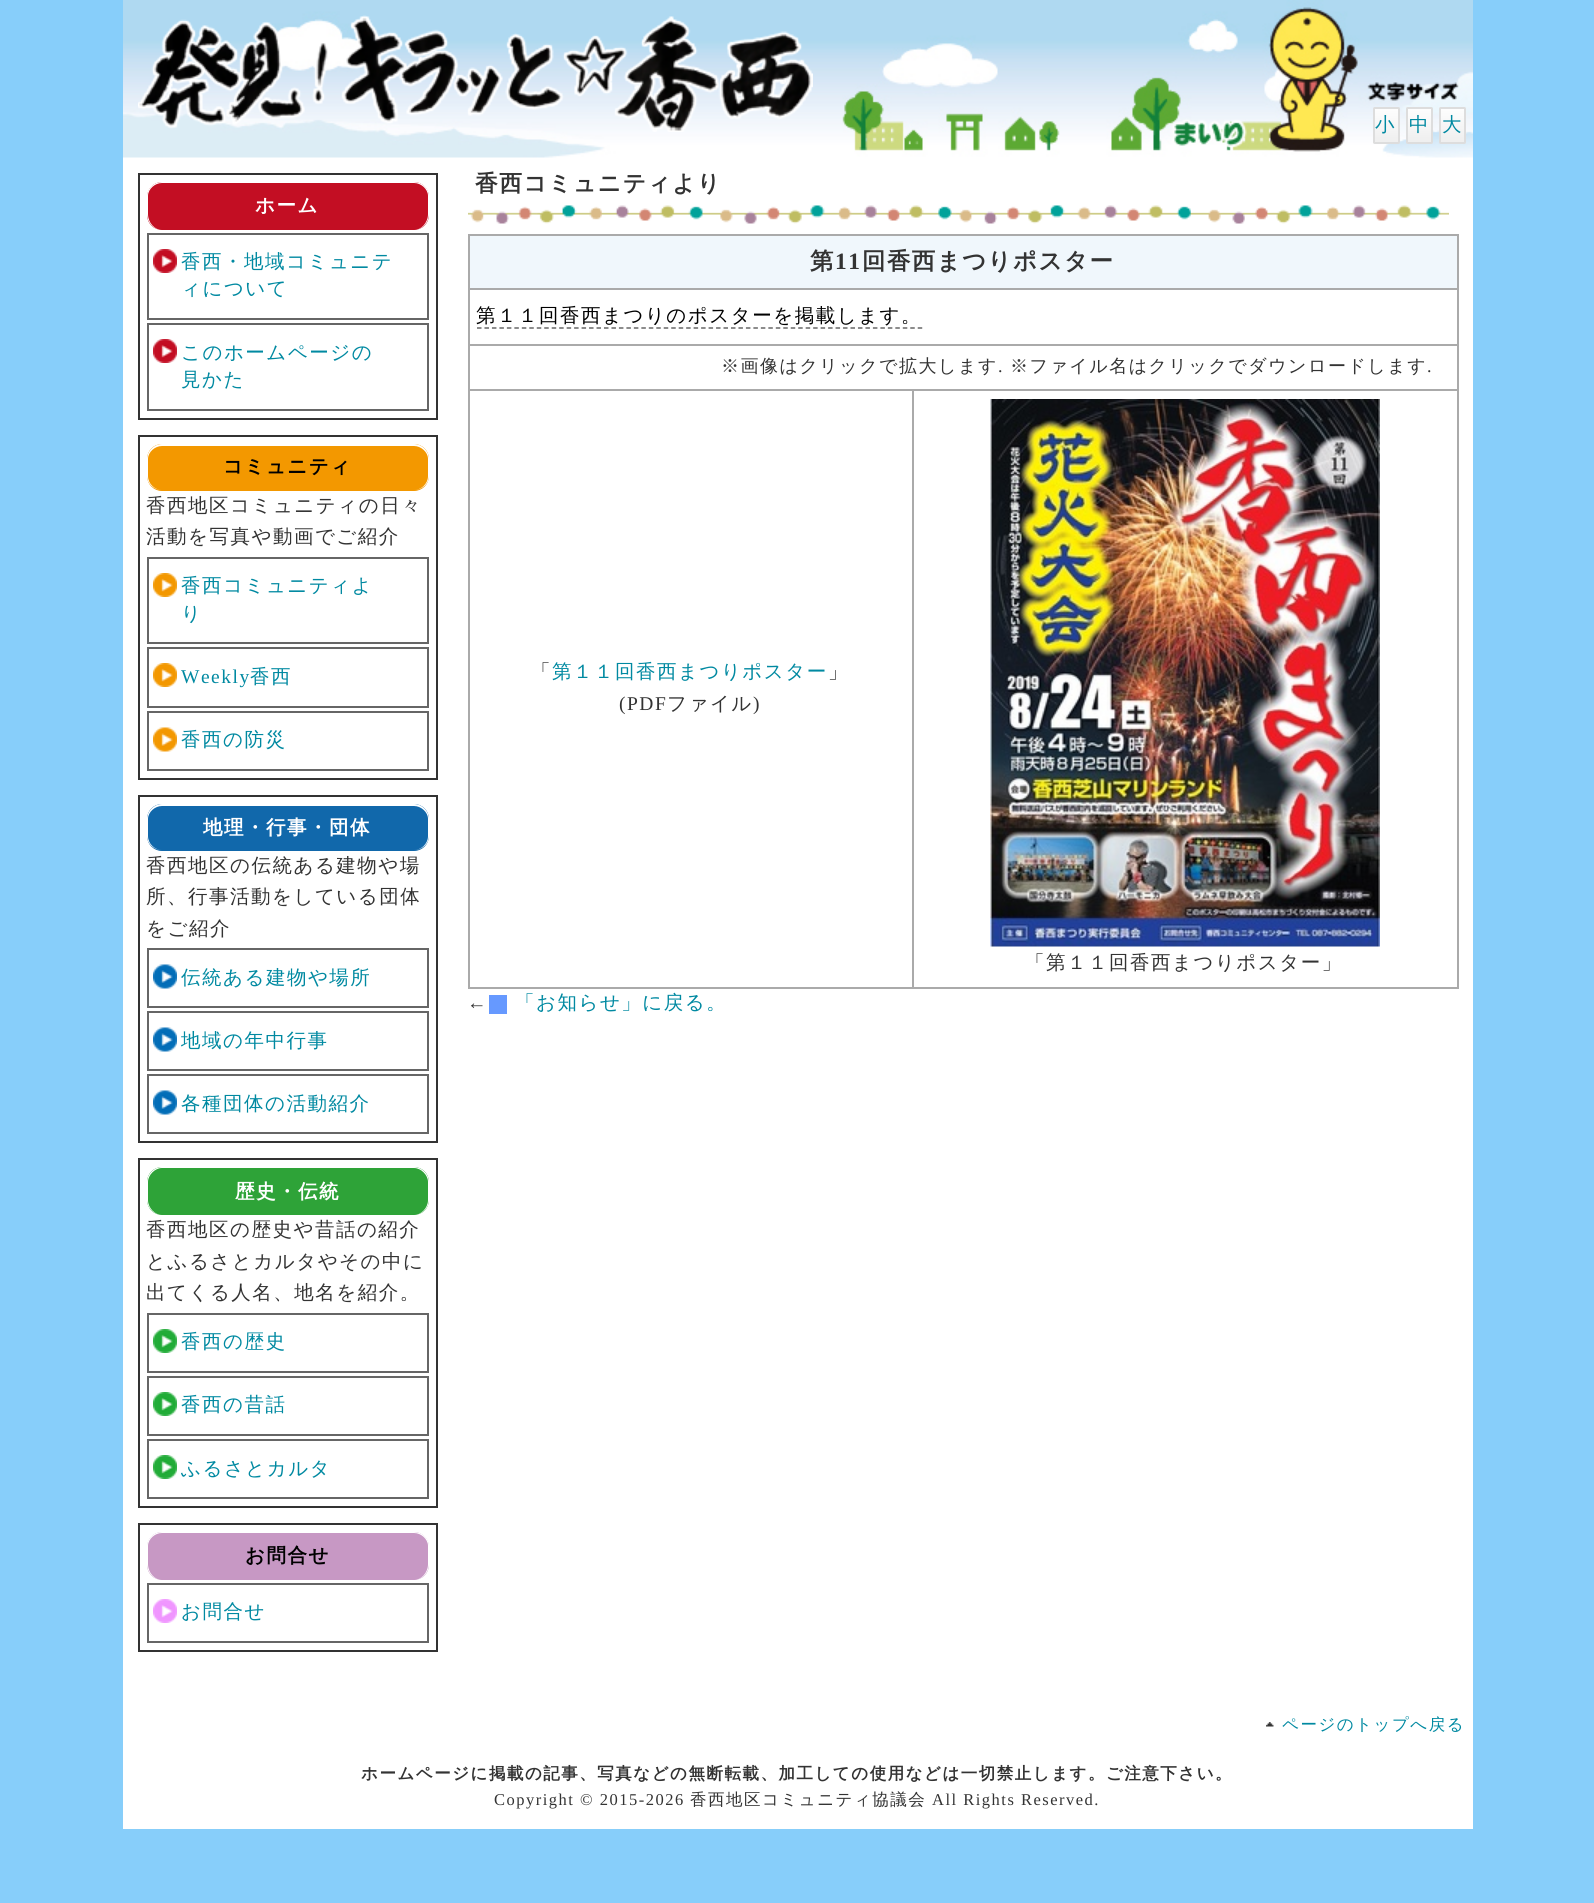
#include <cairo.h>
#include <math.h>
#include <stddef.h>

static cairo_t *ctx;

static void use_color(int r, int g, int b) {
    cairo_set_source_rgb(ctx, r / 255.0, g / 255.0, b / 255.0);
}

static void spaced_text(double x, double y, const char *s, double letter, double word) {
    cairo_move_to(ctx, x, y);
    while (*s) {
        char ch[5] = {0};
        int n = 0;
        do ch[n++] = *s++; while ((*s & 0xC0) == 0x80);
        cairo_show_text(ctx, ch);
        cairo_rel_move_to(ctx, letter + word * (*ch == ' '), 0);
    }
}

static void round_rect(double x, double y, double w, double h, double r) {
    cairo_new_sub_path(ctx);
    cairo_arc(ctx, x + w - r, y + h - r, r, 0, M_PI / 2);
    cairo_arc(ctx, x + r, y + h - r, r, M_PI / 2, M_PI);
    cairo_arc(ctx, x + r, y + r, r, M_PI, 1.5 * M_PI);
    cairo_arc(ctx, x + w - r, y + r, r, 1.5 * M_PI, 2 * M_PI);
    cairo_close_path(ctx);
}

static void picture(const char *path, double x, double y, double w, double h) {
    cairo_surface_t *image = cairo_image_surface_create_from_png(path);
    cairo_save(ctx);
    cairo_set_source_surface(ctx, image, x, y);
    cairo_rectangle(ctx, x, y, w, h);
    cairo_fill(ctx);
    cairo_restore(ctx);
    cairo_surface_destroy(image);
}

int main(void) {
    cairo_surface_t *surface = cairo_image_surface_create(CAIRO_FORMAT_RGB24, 1594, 1903);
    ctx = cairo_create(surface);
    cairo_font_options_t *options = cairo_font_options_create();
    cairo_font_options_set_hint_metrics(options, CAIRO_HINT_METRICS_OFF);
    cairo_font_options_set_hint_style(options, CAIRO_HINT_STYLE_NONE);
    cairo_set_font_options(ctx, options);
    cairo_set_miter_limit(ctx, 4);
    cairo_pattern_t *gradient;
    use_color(135, 206, 250);
    cairo_paint(ctx);
    use_color(255, 255, 255);
    cairo_rectangle(ctx, 123, 157, 1350, 1672);
    cairo_fill(ctx);
    picture("img1.png", 123, 0, 1350, 158);
    picture("img2.png", 138, 15, 675, 117);
    gradient = cairo_pattern_create_linear(1386, 108, 1386, 143);
    cairo_pattern_add_color_stop_rgba(gradient, 0, 0.996, 0.996, 0.996, 1);
    cairo_pattern_add_color_stop_rgba(gradient, 1, 0.933, 0.933, 0.933, 1);
    cairo_set_source(ctx, gradient);
    cairo_pattern_destroy(gradient);
    cairo_rectangle(ctx, 1373, 108, 27, 35);
    cairo_fill(ctx);
    round_rect(1374, 108, 25, 35, 0.5);
    use_color(221, 221, 221);
    cairo_stroke(ctx);
    cairo_select_font_face(ctx, "WenQuanYi Zen Hei Medium", CAIRO_FONT_SLANT_NORMAL, CAIRO_FONT_WEIGHT_NORMAL);
    cairo_set_font_size(ctx, 19.5);
    use_color(0, 137, 161);
    spaced_text(1375, 131, "小", 1.5, 0);
    gradient = cairo_pattern_create_linear(1419, 108, 1419, 143);
    cairo_pattern_add_color_stop_rgba(gradient, 0, 0.996, 0.996, 0.996, 1);
    cairo_pattern_add_color_stop_rgba(gradient, 1, 0.933, 0.933, 0.933, 1);
    cairo_set_source(ctx, gradient);
    cairo_pattern_destroy(gradient);
    cairo_rectangle(ctx, 1406, 108, 27, 35);
    cairo_fill(ctx);
    round_rect(1407, 108, 25, 35, 0.5);
    use_color(221, 221, 221);
    cairo_stroke(ctx);
    use_color(0, 137, 161);
    spaced_text(1409, 131, "中", 1.5, 0);
    gradient = cairo_pattern_create_linear(1452, 108, 1452, 143);
    cairo_pattern_add_color_stop_rgba(gradient, 0, 0.996, 0.996, 0.996, 1);
    cairo_pattern_add_color_stop_rgba(gradient, 1, 0.933, 0.933, 0.933, 1);
    cairo_set_source(ctx, gradient);
    cairo_pattern_destroy(gradient);
    cairo_rectangle(ctx, 1439, 108, 27, 35);
    cairo_fill(ctx);
    round_rect(1440, 108, 25, 35, 0.5);
    use_color(221, 221, 221);
    cairo_stroke(ctx);
    use_color(0, 137, 161);
    spaced_text(1442, 131, "大", 1.5, 0);
    cairo_rectangle(ctx, 139, 174, 298, 245);
    use_color(51, 51, 51);
    cairo_stroke(ctx);
    use_color(195, 14, 35);
    round_rect(147, 182, 282, 48, 15);
    cairo_fill(ctx);
    use_color(255, 255, 255);
    cairo_set_fill_rule(ctx, CAIRO_FILL_RULE_EVEN_ODD);
    cairo_new_path(ctx);
    cairo_move_to(ctx, 162, 182);
    cairo_line_to(ctx, 414, 182);
    cairo_curve_to(ctx, 422, 182, 429, 188, 429, 196);
    cairo_line_to(ctx, 429, 214);
    cairo_curve_to(ctx, 429, 223, 422, 230, 414, 230);
    cairo_line_to(ctx, 162, 230);
    cairo_curve_to(ctx, 154, 230, 147, 223, 147, 214);
    cairo_line_to(ctx, 147, 196);
    cairo_curve_to(ctx, 147, 188, 154, 182, 162, 182);
    cairo_close_path(ctx);
    cairo_move_to(ctx, 162, 183);
    cairo_line_to(ctx, 414, 183);
    cairo_curve_to(ctx, 421, 183, 428, 189, 428, 196);
    cairo_line_to(ctx, 428, 214);
    cairo_curve_to(ctx, 428, 223, 421, 230, 414, 230);
    cairo_line_to(ctx, 162, 230);
    cairo_curve_to(ctx, 155, 230, 148, 223, 148, 214);
    cairo_line_to(ctx, 148, 196);
    cairo_curve_to(ctx, 148, 189, 155, 183, 162, 183);
    cairo_close_path(ctx);
    cairo_fill(ctx);
    cairo_select_font_face(ctx, "WenQuanYi Zen Hei", CAIRO_FONT_SLANT_NORMAL, CAIRO_FONT_WEIGHT_BOLD);
    spaced_text(255, 212, "ホーム", 1.5, 0);
    picture("img3.png", 153, 249, 24, 24);
    cairo_rectangle(ctx, 148, 234, 280, 85);
    use_color(102, 102, 102);
    cairo_stroke(ctx);
    cairo_select_font_face(ctx, "WenQuanYi Zen Hei Medium", CAIRO_FONT_SLANT_NORMAL, CAIRO_FONT_WEIGHT_NORMAL);
    use_color(0, 137, 161);
    spaced_text(181, 268, "香西・地域コミュニテ", 1.5, 0);
    spaced_text(181, 295, "ィについて", 1.5, 0);
    picture("img3.png", 153, 339, 24, 24);
    cairo_rectangle(ctx, 148, 324, 280, 86);
    use_color(102, 102, 102);
    cairo_stroke(ctx);
    use_color(0, 137, 161);
    spaced_text(181, 359, "このホームページの", 1.5, 0);
    spaced_text(181, 386, "見かた", 1.5, 0);
    cairo_rectangle(ctx, 139, 436, 298, 343);
    use_color(51, 51, 51);
    cairo_stroke(ctx);
    use_color(243, 152, 0);
    round_rect(147, 444, 282, 47, 15);
    cairo_fill(ctx);
    use_color(255, 255, 255);
    cairo_new_path(ctx);
    cairo_move_to(ctx, 162, 444);
    cairo_line_to(ctx, 414, 444);
    cairo_curve_to(ctx, 422, 444, 429, 451, 429, 459);
    cairo_line_to(ctx, 429, 476);
    cairo_curve_to(ctx, 429, 484, 422, 490, 414, 490);
    cairo_line_to(ctx, 162, 490);
    cairo_curve_to(ctx, 154, 490, 147, 484, 147, 476);
    cairo_line_to(ctx, 147, 459);
    cairo_curve_to(ctx, 147, 451, 154, 444, 162, 444);
    cairo_close_path(ctx);
    cairo_move_to(ctx, 162, 446);
    cairo_line_to(ctx, 414, 446);
    cairo_curve_to(ctx, 421, 446, 428, 452, 428, 459);
    cairo_line_to(ctx, 428, 476);
    cairo_curve_to(ctx, 428, 484, 421, 490, 414, 490);
    cairo_line_to(ctx, 162, 490);
    cairo_curve_to(ctx, 155, 490, 148, 484, 148, 476);
    cairo_line_to(ctx, 148, 459);
    cairo_curve_to(ctx, 148, 452, 155, 446, 162, 446);
    cairo_close_path(ctx);
    cairo_fill(ctx);
    cairo_select_font_face(ctx, "WenQuanYi Zen Hei", CAIRO_FONT_SLANT_NORMAL, CAIRO_FONT_WEIGHT_BOLD);
    use_color(0, 0, 0);
    spaced_text(223, 473, "コミュニティ", 1.5, 0);
    cairo_select_font_face(ctx, "WenQuanYi Zen Hei Medium", CAIRO_FONT_SLANT_NORMAL, CAIRO_FONT_WEIGHT_NORMAL);
    use_color(51, 51, 51);
    spaced_text(146, 512, "香西地区コミュニティの日々", 1.5, 0);
    spaced_text(146, 543, "活動を写真や動画でご紹介", 1.5, 0);
    picture("img4.png", 153, 573, 24, 24);
    cairo_rectangle(ctx, 148, 558, 280, 85);
    use_color(102, 102, 102);
    cairo_stroke(ctx);
    use_color(0, 137, 161);
    spaced_text(181, 592, "香西コミュニティよ", 1.5, 0);
    spaced_text(181, 620, "り", 1.5, 0);
    picture("img4.png", 153, 663, 24, 24);
    cairo_rectangle(ctx, 148, 648, 280, 59);
    use_color(102, 102, 102);
    cairo_stroke(ctx);
    cairo_select_font_face(ctx, "Liberation Serif", CAIRO_FONT_SLANT_NORMAL, CAIRO_FONT_WEIGHT_NORMAL);
    use_color(0, 137, 161);
    spaced_text(181, 683, "Weekly", 1.5, 0);
    cairo_select_font_face(ctx, "WenQuanYi Zen Hei Medium", CAIRO_FONT_SLANT_NORMAL, CAIRO_FONT_WEIGHT_NORMAL);
    spaced_text(250, 683, "香西", 1.5, 0);
    picture("img5.png", 153, 727, 24, 25);
    cairo_rectangle(ctx, 148, 712, 280, 58);
    use_color(102, 102, 102);
    cairo_stroke(ctx);
    use_color(0, 137, 161);
    spaced_text(181, 746, "香西の防災", 1.5, 0);
    cairo_rectangle(ctx, 139, 796, 298, 346);
    use_color(51, 51, 51);
    cairo_stroke(ctx);
    use_color(17, 104, 171);
    round_rect(147, 804, 282, 47, 15);
    cairo_fill(ctx);
    use_color(255, 255, 255);
    cairo_new_path(ctx);
    cairo_move_to(ctx, 162, 804);
    cairo_line_to(ctx, 414, 804);
    cairo_curve_to(ctx, 422, 804, 429, 811, 429, 819);
    cairo_line_to(ctx, 429, 836);
    cairo_curve_to(ctx, 429, 844, 422, 850, 414, 850);
    cairo_line_to(ctx, 162, 850);
    cairo_curve_to(ctx, 154, 850, 147, 844, 147, 836);
    cairo_line_to(ctx, 147, 819);
    cairo_curve_to(ctx, 147, 811, 154, 804, 162, 804);
    cairo_close_path(ctx);
    cairo_move_to(ctx, 162, 806);
    cairo_line_to(ctx, 414, 806);
    cairo_curve_to(ctx, 421, 806, 428, 812, 428, 819);
    cairo_line_to(ctx, 428, 836);
    cairo_curve_to(ctx, 428, 844, 421, 850, 414, 850);
    cairo_line_to(ctx, 162, 850);
    cairo_curve_to(ctx, 155, 850, 148, 844, 148, 836);
    cairo_line_to(ctx, 148, 819);
    cairo_curve_to(ctx, 148, 812, 155, 806, 162, 806);
    cairo_close_path(ctx);
    cairo_fill(ctx);
    cairo_select_font_face(ctx, "WenQuanYi Zen Hei", CAIRO_FONT_SLANT_NORMAL, CAIRO_FONT_WEIGHT_BOLD);
    spaced_text(203, 834, "地理・行事・団体", 1.5, 0);
    cairo_select_font_face(ctx, "WenQuanYi Zen Hei Medium", CAIRO_FONT_SLANT_NORMAL, CAIRO_FONT_WEIGHT_NORMAL);
    use_color(51, 51, 51);
    spaced_text(146, 872, "香西地区の伝統ある建物や場", 1.5, 0);
    spaced_text(146, 903, "所、行事活動をしている団体", 1.5, 0);
    spaced_text(146, 935, "をご紹介", 1.5, 0);
    picture("img6.png", 153, 964, 24, 25);
    cairo_rectangle(ctx, 148, 949, 280, 58);
    use_color(102, 102, 102);
    cairo_stroke(ctx);
    use_color(0, 137, 161);
    spaced_text(181, 984, "伝統ある建物や場所", 1.5, 0);
    picture("img6.png", 153, 1027, 24, 25);
    cairo_rectangle(ctx, 148, 1012, 280, 58);
    use_color(102, 102, 102);
    cairo_stroke(ctx);
    use_color(0, 137, 161);
    spaced_text(181, 1047, "地域の年中行事", 1.5, 0);
    picture("img6.png", 153, 1090, 24, 25);
    cairo_rectangle(ctx, 148, 1075, 280, 58);
    use_color(102, 102, 102);
    cairo_stroke(ctx);
    use_color(0, 137, 161);
    spaced_text(181, 1110, "各種団体の活動紹介", 1.5, 0);
    cairo_rectangle(ctx, 139, 1159, 298, 348);
    use_color(51, 51, 51);
    cairo_stroke(ctx);
    use_color(46, 163, 56);
    round_rect(147, 1167, 282, 48, 15);
    cairo_fill(ctx);
    use_color(255, 255, 255);
    cairo_new_path(ctx);
    cairo_move_to(ctx, 162, 1167);
    cairo_line_to(ctx, 414, 1167);
    cairo_curve_to(ctx, 422, 1167, 429, 1174, 429, 1182);
    cairo_line_to(ctx, 429, 1200);
    cairo_curve_to(ctx, 429, 1208, 422, 1215, 414, 1215);
    cairo_line_to(ctx, 162, 1215);
    cairo_curve_to(ctx, 154, 1215, 147, 1208, 147, 1200);
    cairo_line_to(ctx, 147, 1182);
    cairo_curve_to(ctx, 147, 1174, 154, 1167, 162, 1167);
    cairo_close_path(ctx);
    cairo_move_to(ctx, 162, 1168);
    cairo_line_to(ctx, 414, 1168);
    cairo_curve_to(ctx, 421, 1168, 428, 1175, 428, 1182);
    cairo_line_to(ctx, 428, 1200);
    cairo_curve_to(ctx, 428, 1208, 421, 1215, 414, 1215);
    cairo_line_to(ctx, 162, 1215);
    cairo_curve_to(ctx, 155, 1215, 148, 1208, 148, 1200);
    cairo_line_to(ctx, 148, 1182);
    cairo_curve_to(ctx, 148, 1175, 155, 1168, 162, 1168);
    cairo_close_path(ctx);
    cairo_fill(ctx);
    cairo_select_font_face(ctx, "WenQuanYi Zen Hei", CAIRO_FONT_SLANT_NORMAL, CAIRO_FONT_WEIGHT_BOLD);
    spaced_text(235, 1198, "歴史・伝統", 1.5, 0);
    cairo_select_font_face(ctx, "WenQuanYi Zen Hei Medium", CAIRO_FONT_SLANT_NORMAL, CAIRO_FONT_WEIGHT_NORMAL);
    use_color(51, 51, 51);
    spaced_text(146, 1236, "香西地区の歴史や昔話の紹介", 1.5, 0);
    spaced_text(146, 1268, "とふるさとカルタやその中に", 1.5, 0);
    spaced_text(146, 1299, "出てくる人名、地名を紹介。", 1.5, 0);
    picture("img7.png", 153, 1329, 24, 24);
    cairo_rectangle(ctx, 148, 1314, 280, 58);
    use_color(102, 102, 102);
    cairo_stroke(ctx);
    use_color(0, 137, 161);
    spaced_text(181, 1348, "香西の歴史", 1.5, 0);
    picture("img7.png", 153, 1392, 24, 24);
    cairo_rectangle(ctx, 148, 1377, 280, 58);
    use_color(102, 102, 102);
    cairo_stroke(ctx);
    use_color(0, 137, 161);
    spaced_text(181, 1411, "香西の昔話", 1.5, 0);
    picture("img7.png", 153, 1455, 24, 24);
    cairo_rectangle(ctx, 148, 1440, 280, 58);
    use_color(102, 102, 102);
    cairo_stroke(ctx);
    use_color(0, 137, 161);
    spaced_text(181, 1475, "ふるさとカルタ", 1.5, 0);
    cairo_rectangle(ctx, 139, 1524, 298, 127);
    use_color(51, 51, 51);
    cairo_stroke(ctx);
    use_color(199, 152, 196);
    round_rect(147, 1532, 282, 48, 15);
    cairo_fill(ctx);
    use_color(255, 255, 255);
    cairo_new_path(ctx);
    cairo_move_to(ctx, 162, 1532);
    cairo_line_to(ctx, 414, 1532);
    cairo_curve_to(ctx, 422, 1532, 429, 1538, 429, 1546);
    cairo_line_to(ctx, 429, 1564);
    cairo_curve_to(ctx, 429, 1573, 422, 1580, 414, 1580);
    cairo_line_to(ctx, 162, 1580);
    cairo_curve_to(ctx, 154, 1580, 147, 1573, 147, 1564);
    cairo_line_to(ctx, 147, 1546);
    cairo_curve_to(ctx, 147, 1538, 154, 1532, 162, 1532);
    cairo_close_path(ctx);
    cairo_move_to(ctx, 162, 1533);
    cairo_line_to(ctx, 414, 1533);
    cairo_curve_to(ctx, 421, 1533, 428, 1539, 428, 1546);
    cairo_line_to(ctx, 428, 1564);
    cairo_curve_to(ctx, 428, 1573, 421, 1580, 414, 1580);
    cairo_line_to(ctx, 162, 1580);
    cairo_curve_to(ctx, 155, 1580, 148, 1573, 148, 1564);
    cairo_line_to(ctx, 148, 1546);
    cairo_curve_to(ctx, 148, 1539, 155, 1533, 162, 1533);
    cairo_close_path(ctx);
    cairo_fill(ctx);
    cairo_select_font_face(ctx, "WenQuanYi Zen Hei", CAIRO_FONT_SLANT_NORMAL, CAIRO_FONT_WEIGHT_BOLD);
    use_color(0, 0, 0);
    spaced_text(245, 1562, "お問合せ", 1.5, 0);
    picture("img8.png", 153, 1599, 24, 24);
    cairo_rectangle(ctx, 148, 1584, 280, 58);
    use_color(102, 102, 102);
    cairo_stroke(ctx);
    cairo_select_font_face(ctx, "WenQuanYi Zen Hei Medium", CAIRO_FONT_SLANT_NORMAL, CAIRO_FONT_WEIGHT_NORMAL);
    use_color(0, 137, 161);
    spaced_text(181, 1618, "お問合せ", 1.5, 0);
    picture("img9.png", 468, 205, 981, 19);
    cairo_select_font_face(ctx, "WenQuanYi Zen Hei", CAIRO_FONT_SLANT_NORMAL, CAIRO_FONT_WEIGHT_BOLD);
    cairo_set_font_size(ctx, 22.75);
    use_color(51, 51, 51);
    spaced_text(475, 191, "香西コミュニティより", 1.5, 0);
    use_color(240, 247, 252);
    cairo_rectangle(ctx, 470, 236, 987, 52);
    cairo_fill(ctx);
    use_color(170, 170, 170);
    cairo_rectangle(ctx, 468, 234, 990, 2);
    cairo_fill(ctx);
    cairo_rectangle(ctx, 468, 288, 990, 2);
    cairo_fill(ctx);
    cairo_rectangle(ctx, 468, 344, 990, 2);
    cairo_fill(ctx);
    cairo_rectangle(ctx, 912, 389, 546, 2);
    cairo_fill(ctx);
    cairo_rectangle(ctx, 1457, 389, 2, 600);
    cairo_fill(ctx);
    cairo_rectangle(ctx, 1457, 344, 2, 46);
    cairo_fill(ctx);
    cairo_rectangle(ctx, 1457, 288, 2, 57);
    cairo_fill(ctx);
    cairo_rectangle(ctx, 1457, 234, 2, 56);
    cairo_fill(ctx);
    cairo_rectangle(ctx, 912, 987, 546, 2);
    cairo_fill(ctx);
    cairo_rectangle(ctx, 912, 389, 2, 600);
    cairo_fill(ctx);
    cairo_rectangle(ctx, 468, 389, 446, 2);
    cairo_fill(ctx);
    cairo_rectangle(ctx, 468, 987, 446, 2);
    cairo_fill(ctx);
    cairo_rectangle(ctx, 468, 389, 2, 600);
    cairo_fill(ctx);
    cairo_rectangle(ctx, 468, 344, 2, 46);
    cairo_fill(ctx);
    cairo_rectangle(ctx, 468, 288, 2, 57);
    cairo_fill(ctx);
    cairo_rectangle(ctx, 468, 234, 2, 56);
    cairo_fill(ctx);
    cairo_set_font_size(ctx, 23.4);
    use_color(51, 51, 51);
    spaced_text(810, 269, "第", 1.5, 0);
    cairo_select_font_face(ctx, "Liberation Serif", CAIRO_FONT_SLANT_NORMAL, CAIRO_FONT_WEIGHT_BOLD);
    spaced_text(835, 269, "11", 1.5, 0);
    cairo_select_font_face(ctx, "WenQuanYi Zen Hei", CAIRO_FONT_SLANT_NORMAL, CAIRO_FONT_WEIGHT_BOLD);
    spaced_text(862, 269, "回香西まつりポスター", 1.5, 0);
    cairo_select_font_face(ctx, "WenQuanYi Zen Hei Medium", CAIRO_FONT_SLANT_NORMAL, CAIRO_FONT_WEIGHT_NORMAL);
    cairo_set_font_size(ctx, 19.5);
    use_color(0, 0, 0);
    spaced_text(476, 322, "第１１回香西まつりのポスターを掲載します。", 1.5, 0);
    cairo_new_path(ctx);
    cairo_move_to(ctx, 477, 328);
    cairo_line_to(ctx, 922.5, 328);
    use_color(102, 102, 102);
    cairo_set_line_width(ctx, 1.5);
    cairo_set_dash(ctx, (double[]){4.5, 2.97}, 2, 0);
    cairo_stroke(ctx);
    cairo_set_font_size(ctx, 18);
    use_color(51, 51, 51);
    spaced_text(721, 372, "※画像はクリックで拡大します", 1.5, 0);
    cairo_select_font_face(ctx, "Liberation Serif", CAIRO_FONT_SLANT_NORMAL, CAIRO_FONT_WEIGHT_NORMAL);
    spaced_text(998, 372, ".", 1.5, 0);
    cairo_select_font_face(ctx, "WenQuanYi Zen Hei Medium", CAIRO_FONT_SLANT_NORMAL, CAIRO_FONT_WEIGHT_NORMAL);
    spaced_text(1010, 372, "※ファイル名はクリックでダウンロードします", 1.5, 0);
    cairo_select_font_face(ctx, "Liberation Serif", CAIRO_FONT_SLANT_NORMAL, CAIRO_FONT_WEIGHT_NORMAL);
    spaced_text(1427, 372, ".", 1.5, 0);
    cairo_select_font_face(ctx, "WenQuanYi Zen Hei Medium", CAIRO_FONT_SLANT_NORMAL, CAIRO_FONT_WEIGHT_NORMAL);
    cairo_set_font_size(ctx, 19.5);
    spaced_text(531, 678, "「", 1.5, 0);
    use_color(0, 137, 161);
    spaced_text(552, 678, "第１１回香西まつりポスター", 1.5, 0);
    use_color(51, 51, 51);
    spaced_text(828, 678, "」", 1.5, 0);
    cairo_select_font_face(ctx, "Liberation Serif", CAIRO_FONT_SLANT_NORMAL, CAIRO_FONT_WEIGHT_NORMAL);
    spaced_text(619, 710, "(PDF", 1.5, 0);
    cairo_select_font_face(ctx, "WenQuanYi Zen Hei Medium", CAIRO_FONT_SLANT_NORMAL, CAIRO_FONT_WEIGHT_NORMAL);
    spaced_text(667, 710, "ファイル", 1.5, 0);
    cairo_select_font_face(ctx, "Liberation Serif", CAIRO_FONT_SLANT_NORMAL, CAIRO_FONT_WEIGHT_NORMAL);
    spaced_text(753, 710, ")", 1.5, 0);
    picture("img10.png", 990, 399, 390, 548);
    cairo_select_font_face(ctx, "WenQuanYi Zen Hei Medium", CAIRO_FONT_SLANT_NORMAL, CAIRO_FONT_WEIGHT_NORMAL);
    spaced_text(1025, 969, "「第１１回香西まつりポスター」", 1.5, 0);
    cairo_select_font_face(ctx, "Liberation Serif", CAIRO_FONT_SLANT_NORMAL, CAIRO_FONT_WEIGHT_NORMAL);
    spaced_text(467, 1009, "←", 1.5, 0);
    use_color(102, 153, 255);
    cairo_rectangle(ctx, 489, 995, 18, 19);
    cairo_fill(ctx);
    cairo_select_font_face(ctx, "WenQuanYi Zen Hei Medium", CAIRO_FONT_SLANT_NORMAL, CAIRO_FONT_WEIGHT_NORMAL);
    use_color(0, 137, 161);
    spaced_text(515, 1009, "「お知らせ」に戻る。", 1.5, 0);
    picture("img11.png", 1266, 1722, 8, 5);
    cairo_set_font_size(ctx, 16.5);
    spaced_text(1282, 1730, "ページのトップへ戻る", 1.5, 0);
    cairo_select_font_face(ctx, "WenQuanYi Zen Hei", CAIRO_FONT_SLANT_NORMAL, CAIRO_FONT_WEIGHT_BOLD);
    use_color(51, 51, 51);
    spaced_text(361, 1779, "ホームページに掲載の記事、写真などの無断転載、加工しての使用などは一切禁止します。ご注意下さい。", 1.5, 0);
    cairo_select_font_face(ctx, "Liberation Serif", CAIRO_FONT_SLANT_NORMAL, CAIRO_FONT_WEIGHT_NORMAL);
    spaced_text(494, 1805, "Copyright © 2015-2026", 1.5, 0);
    cairo_select_font_face(ctx, "WenQuanYi Zen Hei Medium", CAIRO_FONT_SLANT_NORMAL, CAIRO_FONT_WEIGHT_NORMAL);
    spaced_text(690, 1805, "香西地区コミュニティ協議会", 1.5, 0);
    cairo_select_font_face(ctx, "Liberation Serif", CAIRO_FONT_SLANT_NORMAL, CAIRO_FONT_WEIGHT_NORMAL);
    spaced_text(932, 1805, "All Rights Reserved.", 1.5, 0);
    cairo_surface_write_to_png(surface, "result.png");
    cairo_font_options_destroy(options);
    cairo_destroy(ctx);
    cairo_surface_destroy(surface);
    return 0;
}
